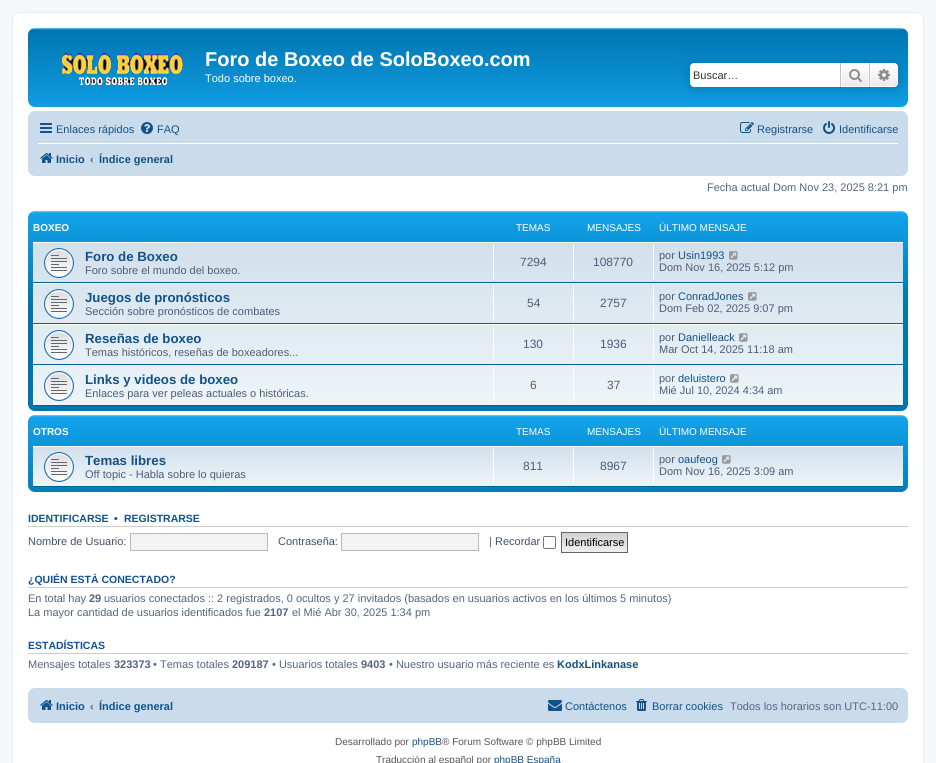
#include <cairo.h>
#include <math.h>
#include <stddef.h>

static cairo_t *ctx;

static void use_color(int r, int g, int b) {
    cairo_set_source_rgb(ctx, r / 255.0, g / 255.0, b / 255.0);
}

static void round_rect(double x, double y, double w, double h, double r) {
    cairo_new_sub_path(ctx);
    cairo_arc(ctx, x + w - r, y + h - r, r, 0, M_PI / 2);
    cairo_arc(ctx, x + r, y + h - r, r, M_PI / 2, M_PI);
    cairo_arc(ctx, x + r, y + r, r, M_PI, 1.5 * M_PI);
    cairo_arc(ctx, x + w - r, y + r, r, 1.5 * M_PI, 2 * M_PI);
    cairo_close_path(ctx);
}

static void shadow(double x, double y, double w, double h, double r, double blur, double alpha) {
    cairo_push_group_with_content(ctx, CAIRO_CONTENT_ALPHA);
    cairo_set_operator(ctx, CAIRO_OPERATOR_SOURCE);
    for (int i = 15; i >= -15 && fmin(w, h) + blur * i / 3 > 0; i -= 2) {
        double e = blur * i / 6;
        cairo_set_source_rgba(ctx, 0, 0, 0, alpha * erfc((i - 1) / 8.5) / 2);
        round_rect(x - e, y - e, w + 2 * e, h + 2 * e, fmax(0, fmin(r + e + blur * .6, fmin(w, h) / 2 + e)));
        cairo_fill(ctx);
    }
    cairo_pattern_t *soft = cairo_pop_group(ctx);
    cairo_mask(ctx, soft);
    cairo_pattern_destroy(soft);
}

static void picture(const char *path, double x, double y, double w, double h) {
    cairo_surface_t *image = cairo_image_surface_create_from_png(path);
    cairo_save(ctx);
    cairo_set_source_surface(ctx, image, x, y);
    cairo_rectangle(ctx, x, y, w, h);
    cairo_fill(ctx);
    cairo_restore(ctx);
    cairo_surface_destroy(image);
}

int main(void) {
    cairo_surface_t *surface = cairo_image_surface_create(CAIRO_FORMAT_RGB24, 936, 763);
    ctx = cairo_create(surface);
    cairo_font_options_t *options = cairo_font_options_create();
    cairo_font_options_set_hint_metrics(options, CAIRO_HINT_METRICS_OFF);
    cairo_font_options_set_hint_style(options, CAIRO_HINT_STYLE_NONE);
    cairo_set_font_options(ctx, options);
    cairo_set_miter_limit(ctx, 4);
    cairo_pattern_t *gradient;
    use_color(245, 247, 250);
    cairo_paint(ctx);
    use_color(255, 255, 255);
    round_rect(12.5, 12.5, 911, 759, 7.5);
    cairo_fill_preserve(ctx);
    use_color(230, 233, 237);
    cairo_set_line_width(ctx, 1);
    cairo_stroke(ctx);
    gradient = cairo_pattern_create_linear(468, 28, 468, 120);
    cairo_pattern_add_color_stop_rgba(gradient, 0, 0.416, 0.808, 1, 1);
    cairo_pattern_add_color_stop_rgba(gradient, 0.02, 0, 0.463, 0.694, 1);
    cairo_pattern_add_color_stop_rgba(gradient, 1, 0.071, 0.639, 0.922, 1);
    cairo_set_source(ctx, gradient);
    cairo_pattern_destroy(gradient);
    round_rect(28, 28, 880, 79, 7);
    cairo_fill(ctx);
    picture("img1.png", 62, 53, 121, 32);
    cairo_select_font_face(ctx, "Liberation Sans", CAIRO_FONT_SLANT_NORMAL, CAIRO_FONT_WEIGHT_BOLD);
    cairo_set_font_size(ctx, 20);
    use_color(255, 255, 255);
    cairo_move_to(ctx, 205, 66);
    cairo_show_text(ctx, "Foro de Boxeo de SoloBoxeo.com");
    cairo_select_font_face(ctx, "Liberation Sans", CAIRO_FONT_SLANT_NORMAL, CAIRO_FONT_WEIGHT_NORMAL);
    cairo_set_font_size(ctx, 11);
    cairo_move_to(ctx, 205, 82);
    cairo_show_text(ctx, "Todo sobre boxeo.");
    use_color(0, 117, 176);
    shadow(690, 63, 208, 24, 4, 5, 1);
    use_color(255, 255, 255);
    cairo_new_path(ctx);
    cairo_move_to(ctx, 694, 63);
    cairo_line_to(ctx, 840, 63);
    cairo_line_to(ctx, 840, 87);
    cairo_line_to(ctx, 694, 87);
    cairo_curve_to(ctx, 692, 87, 690, 85, 690, 83);
    cairo_line_to(ctx, 690, 67);
    cairo_curve_to(ctx, 690, 65, 692, 63, 694, 63);
    cairo_close_path(ctx);
    cairo_fill(ctx);
    use_color(51, 51, 51);
    cairo_move_to(ctx, 693, 79);
    cairo_show_text(ctx, "Buscar…");
    gradient = cairo_pattern_create_linear(855, 63, 855, 87);
    cairo_pattern_add_color_stop_rgba(gradient, 0, 1, 1, 1, 1);
    cairo_pattern_add_color_stop_rgba(gradient, 1, 0.914, 0.914, 0.914, 1);
    cairo_set_source(ctx, gradient);
    cairo_pattern_destroy(gradient);
    cairo_rectangle(ctx, 842, 64, 26, 22);
    cairo_fill(ctx);
    cairo_rectangle(ctx, 841.5, 63.5, 27, 23);
    use_color(255, 255, 255);
    cairo_stroke(ctx);
    use_color(199, 195, 191);
    cairo_rectangle(ctx, 869, 63, 1, 24);
    cairo_fill(ctx);
    cairo_rectangle(ctx, 840, 63, 1, 24);
    cairo_fill(ctx);
    picture("img2.png", 849, 69, 13, 13);
    gradient = cairo_pattern_create_linear(884, 63, 884, 87);
    cairo_pattern_add_color_stop_rgba(gradient, 0, 1, 1, 1, 1);
    cairo_pattern_add_color_stop_rgba(gradient, 1, 0.914, 0.914, 0.914, 1);
    cairo_set_source(ctx, gradient);
    cairo_pattern_destroy(gradient);
    cairo_new_path(ctx);
    cairo_move_to(ctx, 870.5, 63.5);
    cairo_line_to(ctx, 894, 63.5);
    cairo_curve_to(ctx, 896, 63.5, 897.5, 65, 897.5, 67);
    cairo_line_to(ctx, 897.5, 83);
    cairo_curve_to(ctx, 897.5, 85, 896, 86.5, 894, 86.5);
    cairo_line_to(ctx, 870.5, 86.5);
    cairo_close_path(ctx);
    cairo_fill_preserve(ctx);
    use_color(255, 255, 255);
    cairo_stroke(ctx);
    picture("img3.png", 878, 69, 12, 12);
    use_color(202, 220, 235);
    round_rect(28, 111, 880, 65, 7);
    cairo_fill(ctx);
    picture("img4.png", 40, 123, 12, 10);
    use_color(16, 82, 137);
    cairo_move_to(ctx, 56, 133);
    cairo_show_text(ctx, "Enlaces rápidos");
    picture("img5.png", 141, 122, 12, 12);
    cairo_move_to(ctx, 157, 133);
    cairo_show_text(ctx, "FAQ");
    picture("img6.png", 740, 122, 14, 11);
    cairo_move_to(ctx, 757, 133);
    cairo_show_text(ctx, "Registrarse");
    picture("img7.png", 823, 121, 12, 13);
    cairo_move_to(ctx, 839, 133);
    cairo_show_text(ctx, "Identificarse");
    use_color(255, 255, 255);
    cairo_rectangle(ctx, 38, 143, 860, 1);
    cairo_fill(ctx);
    picture("img8.png", 40, 153, 13, 10);
    cairo_select_font_face(ctx, "Liberation Sans", CAIRO_FONT_SLANT_NORMAL, CAIRO_FONT_WEIGHT_BOLD);
    use_color(16, 82, 137);
    cairo_move_to(ctx, 56, 163);
    cairo_show_text(ctx, "Inicio");
    use_color(83, 100, 130);
    cairo_move_to(ctx, 90, 163);
    cairo_show_text(ctx, "‹");
    use_color(16, 82, 137);
    cairo_move_to(ctx, 99, 163);
    cairo_show_text(ctx, "Índice general");
    cairo_select_font_face(ctx, "Liberation Sans", CAIRO_FONT_SLANT_NORMAL, CAIRO_FONT_WEIGHT_NORMAL);
    use_color(83, 100, 130);
    cairo_move_to(ctx, 707, 191);
    cairo_show_text(ctx, "Fecha actual Dom Nov 23, 2025 8:21 pm");
    gradient = cairo_pattern_create_linear(468, 211, 468, 411);
    cairo_pattern_add_color_stop_rgba(gradient, 0, 0.416, 0.808, 1, 1);
    cairo_pattern_add_color_stop_rgba(gradient, 0.01, 0.071, 0.639, 0.922, 1);
    cairo_pattern_add_color_stop_rgba(gradient, 0.46, 0, 0.463, 0.694, 1);
    cairo_pattern_add_color_stop_rgba(gradient, 1, 0, 0.463, 0.694, 1);
    cairo_set_source(ctx, gradient);
    cairo_pattern_destroy(gradient);
    round_rect(28, 211, 880, 200, 7);
    cairo_fill(ctx);
    cairo_select_font_face(ctx, "Liberation Sans", CAIRO_FONT_SLANT_NORMAL, CAIRO_FONT_WEIGHT_BOLD);
    cairo_set_font_size(ctx, 10);
    use_color(255, 255, 255);
    cairo_move_to(ctx, 33, 231);
    cairo_show_text(ctx, "BOXEO");
    cairo_select_font_face(ctx, "Liberation Sans", CAIRO_FONT_SLANT_NORMAL, CAIRO_FONT_WEIGHT_NORMAL);
    cairo_move_to(ctx, 516, 231);
    cairo_show_text(ctx, "TEMAS");
    cairo_move_to(ctx, 587, 231);
    cairo_show_text(ctx, "MENSAJES");
    cairo_move_to(ctx, 659, 231);
    cairo_show_text(ctx, "ÚLTIMO MENSAJE");
    gradient = cairo_pattern_create_linear(468, 242, 468, 406);
    cairo_pattern_add_color_stop_rgba(gradient, 0, 0.824, 0.878, 0.922, 1);
    cairo_pattern_add_color_stop_rgba(gradient, 1, 0.933, 0.961, 0.976, 1);
    cairo_set_source(ctx, gradient);
    cairo_pattern_destroy(gradient);
    cairo_rectangle(ctx, 33, 243, 870, 162);
    cairo_fill(ctx);
    use_color(255, 255, 255);
    cairo_rectangle(ctx, 33, 242, 870, 1);
    cairo_fill(ctx);
    use_color(0, 96, 143);
    cairo_rectangle(ctx, 33, 282, 870, 1);
    cairo_fill(ctx);
    picture("img9.png", 44, 248, 30, 30);
    cairo_select_font_face(ctx, "Liberation Sans", CAIRO_FONT_SLANT_NORMAL, CAIRO_FONT_WEIGHT_BOLD);
    cairo_set_font_size(ctx, 13.25);
    use_color(16, 82, 137);
    cairo_move_to(ctx, 85, 261);
    cairo_show_text(ctx, "Foro de Boxeo");
    cairo_select_font_face(ctx, "Liberation Sans", CAIRO_FONT_SLANT_NORMAL, CAIRO_FONT_WEIGHT_NORMAL);
    cairo_set_font_size(ctx, 11);
    use_color(76, 93, 119);
    cairo_move_to(ctx, 85, 274);
    cairo_show_text(ctx, "Foro sobre el mundo del boxeo.");
    use_color(255, 255, 255);
    cairo_rectangle(ctx, 493, 245, 1, 35);
    cairo_fill(ctx);
    cairo_set_font_size(ctx, 12);
    use_color(76, 93, 119);
    cairo_move_to(ctx, 520, 266);
    cairo_show_text(ctx, "7294");
    use_color(255, 255, 255);
    cairo_rectangle(ctx, 573, 245, 1, 35);
    cairo_fill(ctx);
    use_color(76, 93, 119);
    cairo_move_to(ctx, 593, 266);
    cairo_show_text(ctx, "108770");
    use_color(255, 255, 255);
    cairo_rectangle(ctx, 653, 245, 1, 35);
    cairo_fill(ctx);
    cairo_set_font_size(ctx, 11);
    use_color(76, 93, 119);
    cairo_move_to(ctx, 659, 259);
    cairo_show_text(ctx, "por");
    use_color(16, 82, 137);
    cairo_move_to(ctx, 678, 259);
    cairo_show_text(ctx, "Usin1993");
    picture("img10.png", 729, 251, 9, 9);
    use_color(76, 93, 119);
    cairo_move_to(ctx, 659, 271);
    cairo_show_text(ctx, "Dom Nov 16, 2025 5:12 pm");
    use_color(255, 255, 255);
    cairo_rectangle(ctx, 33, 283, 870, 1);
    cairo_fill(ctx);
    use_color(0, 96, 143);
    cairo_rectangle(ctx, 33, 323, 870, 1);
    cairo_fill(ctx);
    picture("img11.png", 44, 289, 30, 30);
    cairo_select_font_face(ctx, "Liberation Sans", CAIRO_FONT_SLANT_NORMAL, CAIRO_FONT_WEIGHT_BOLD);
    cairo_set_font_size(ctx, 13.25);
    use_color(16, 82, 137);
    cairo_move_to(ctx, 85, 302);
    cairo_show_text(ctx, "Juegos de pronósticos");
    cairo_select_font_face(ctx, "Liberation Sans", CAIRO_FONT_SLANT_NORMAL, CAIRO_FONT_WEIGHT_NORMAL);
    cairo_set_font_size(ctx, 11);
    use_color(76, 93, 119);
    cairo_move_to(ctx, 85, 315);
    cairo_show_text(ctx, "Sección sobre pronósticos de combates");
    use_color(255, 255, 255);
    cairo_rectangle(ctx, 493, 286, 1, 35);
    cairo_fill(ctx);
    cairo_set_font_size(ctx, 12);
    use_color(76, 93, 119);
    cairo_move_to(ctx, 527, 307);
    cairo_show_text(ctx, "54");
    use_color(255, 255, 255);
    cairo_rectangle(ctx, 573, 286, 1, 35);
    cairo_fill(ctx);
    use_color(76, 93, 119);
    cairo_move_to(ctx, 600, 307);
    cairo_show_text(ctx, "2757");
    use_color(255, 255, 255);
    cairo_rectangle(ctx, 653, 286, 1, 35);
    cairo_fill(ctx);
    cairo_set_font_size(ctx, 11);
    use_color(76, 93, 119);
    cairo_move_to(ctx, 659, 300);
    cairo_show_text(ctx, "por");
    use_color(16, 82, 137);
    cairo_move_to(ctx, 678, 300);
    cairo_show_text(ctx, "ConradJones");
    picture("img12.png", 748, 292, 9, 9);
    use_color(76, 93, 119);
    cairo_move_to(ctx, 659, 312);
    cairo_show_text(ctx, "Dom Feb 02, 2025 9:07 pm");
    use_color(255, 255, 255);
    cairo_rectangle(ctx, 33, 324, 870, 1);
    cairo_fill(ctx);
    use_color(0, 96, 143);
    cairo_rectangle(ctx, 33, 364, 870, 1);
    cairo_fill(ctx);
    picture("img13.png", 44, 330, 30, 30);
    cairo_select_font_face(ctx, "Liberation Sans", CAIRO_FONT_SLANT_NORMAL, CAIRO_FONT_WEIGHT_BOLD);
    cairo_set_font_size(ctx, 13.25);
    use_color(16, 82, 137);
    cairo_move_to(ctx, 85, 343);
    cairo_show_text(ctx, "Reseñas de boxeo");
    cairo_select_font_face(ctx, "Liberation Sans", CAIRO_FONT_SLANT_NORMAL, CAIRO_FONT_WEIGHT_NORMAL);
    cairo_set_font_size(ctx, 11);
    use_color(76, 93, 119);
    cairo_move_to(ctx, 85, 356);
    cairo_show_text(ctx, "Temas históricos, reseñas de boxeadores...");
    use_color(255, 255, 255);
    cairo_rectangle(ctx, 493, 327, 1, 35);
    cairo_fill(ctx);
    cairo_set_font_size(ctx, 12);
    use_color(76, 93, 119);
    cairo_move_to(ctx, 523, 348);
    cairo_show_text(ctx, "130");
    use_color(255, 255, 255);
    cairo_rectangle(ctx, 573, 327, 1, 35);
    cairo_fill(ctx);
    use_color(76, 93, 119);
    cairo_move_to(ctx, 600, 348);
    cairo_show_text(ctx, "1936");
    use_color(255, 255, 255);
    cairo_rectangle(ctx, 653, 327, 1, 35);
    cairo_fill(ctx);
    cairo_set_font_size(ctx, 11);
    use_color(76, 93, 119);
    cairo_move_to(ctx, 659, 341);
    cairo_show_text(ctx, "por");
    use_color(16, 82, 137);
    cairo_move_to(ctx, 678, 341);
    cairo_show_text(ctx, "Danielleack");
    picture("img14.png", 739, 333, 9, 9);
    use_color(76, 93, 119);
    cairo_move_to(ctx, 659, 353);
    cairo_show_text(ctx, "Mar Oct 14, 2025 11:18 am");
    use_color(255, 255, 255);
    cairo_rectangle(ctx, 33, 365, 870, 1);
    cairo_fill(ctx);
    use_color(0, 96, 143);
    cairo_rectangle(ctx, 33, 405, 870, 1);
    cairo_fill(ctx);
    picture("img15.png", 44, 371, 30, 30);
    cairo_select_font_face(ctx, "Liberation Sans", CAIRO_FONT_SLANT_NORMAL, CAIRO_FONT_WEIGHT_BOLD);
    cairo_set_font_size(ctx, 13.25);
    use_color(16, 82, 137);
    cairo_move_to(ctx, 85, 384);
    cairo_show_text(ctx, "Links y videos de boxeo");
    cairo_select_font_face(ctx, "Liberation Sans", CAIRO_FONT_SLANT_NORMAL, CAIRO_FONT_WEIGHT_NORMAL);
    cairo_set_font_size(ctx, 11);
    use_color(76, 93, 119);
    cairo_move_to(ctx, 85, 397);
    cairo_show_text(ctx, "Enlaces para ver peleas actuales o históricas.");
    use_color(255, 255, 255);
    cairo_rectangle(ctx, 493, 368, 1, 35);
    cairo_fill(ctx);
    cairo_set_font_size(ctx, 12);
    use_color(76, 93, 119);
    cairo_move_to(ctx, 530, 389);
    cairo_show_text(ctx, "6");
    use_color(255, 255, 255);
    cairo_rectangle(ctx, 573, 368, 1, 35);
    cairo_fill(ctx);
    use_color(76, 93, 119);
    cairo_move_to(ctx, 607, 389);
    cairo_show_text(ctx, "37");
    use_color(255, 255, 255);
    cairo_rectangle(ctx, 653, 368, 1, 35);
    cairo_fill(ctx);
    cairo_set_font_size(ctx, 11);
    use_color(76, 93, 119);
    cairo_move_to(ctx, 659, 382);
    cairo_show_text(ctx, "por");
    use_color(16, 82, 137);
    cairo_move_to(ctx, 678, 382);
    cairo_show_text(ctx, "deluistero");
    picture("img16.png", 730, 374, 9, 9);
    use_color(76, 93, 119);
    cairo_move_to(ctx, 659, 394);
    cairo_show_text(ctx, "Mié Jul 10, 2024 4:34 am");
    gradient = cairo_pattern_create_linear(468, 415, 468, 507);
    cairo_pattern_add_color_stop_rgba(gradient, 0, 0.416, 0.808, 1, 1);
    cairo_pattern_add_color_stop_rgba(gradient, 0.02, 0.071, 0.639, 0.922, 1);
    cairo_pattern_add_color_stop_rgba(gradient, 1, 0, 0.463, 0.694, 1);
    cairo_set_source(ctx, gradient);
    cairo_pattern_destroy(gradient);
    round_rect(28, 415, 880, 77, 7);
    cairo_fill(ctx);
    cairo_select_font_face(ctx, "Liberation Sans", CAIRO_FONT_SLANT_NORMAL, CAIRO_FONT_WEIGHT_BOLD);
    cairo_set_font_size(ctx, 10);
    use_color(255, 255, 255);
    cairo_move_to(ctx, 33, 435);
    cairo_show_text(ctx, "OTROS");
    cairo_select_font_face(ctx, "Liberation Sans", CAIRO_FONT_SLANT_NORMAL, CAIRO_FONT_WEIGHT_NORMAL);
    cairo_move_to(ctx, 516, 435);
    cairo_show_text(ctx, "TEMAS");
    cairo_move_to(ctx, 587, 435);
    cairo_show_text(ctx, "MENSAJES");
    cairo_move_to(ctx, 659, 435);
    cairo_show_text(ctx, "ÚLTIMO MENSAJE");
    gradient = cairo_pattern_create_linear(468, 446, 468, 487);
    cairo_pattern_add_color_stop_rgba(gradient, 0, 0.824, 0.878, 0.922, 1);
    cairo_pattern_add_color_stop_rgba(gradient, 1, 0.933, 0.961, 0.976, 1);
    cairo_set_source(ctx, gradient);
    cairo_pattern_destroy(gradient);
    cairo_rectangle(ctx, 33, 447, 870, 39);
    cairo_fill(ctx);
    use_color(255, 255, 255);
    cairo_rectangle(ctx, 33, 446, 870, 1);
    cairo_fill(ctx);
    use_color(0, 96, 143);
    cairo_rectangle(ctx, 33, 486, 870, 1);
    cairo_fill(ctx);
    picture("img17.png", 44, 452, 30, 30);
    cairo_select_font_face(ctx, "Liberation Sans", CAIRO_FONT_SLANT_NORMAL, CAIRO_FONT_WEIGHT_BOLD);
    cairo_set_font_size(ctx, 13.25);
    use_color(16, 82, 137);
    cairo_move_to(ctx, 85, 465);
    cairo_show_text(ctx, "Temas libres");
    cairo_select_font_face(ctx, "Liberation Sans", CAIRO_FONT_SLANT_NORMAL, CAIRO_FONT_WEIGHT_NORMAL);
    cairo_set_font_size(ctx, 11);
    use_color(76, 93, 119);
    cairo_move_to(ctx, 85, 478);
    cairo_show_text(ctx, "Off topic - Habla sobre lo quieras");
    use_color(255, 255, 255);
    cairo_rectangle(ctx, 493, 449, 1, 35);
    cairo_fill(ctx);
    cairo_set_font_size(ctx, 12);
    use_color(76, 93, 119);
    cairo_move_to(ctx, 523, 470);
    cairo_show_text(ctx, "811");
    use_color(255, 255, 255);
    cairo_rectangle(ctx, 573, 449, 1, 35);
    cairo_fill(ctx);
    use_color(76, 93, 119);
    cairo_move_to(ctx, 600, 470);
    cairo_show_text(ctx, "8967");
    use_color(255, 255, 255);
    cairo_rectangle(ctx, 653, 449, 1, 35);
    cairo_fill(ctx);
    cairo_set_font_size(ctx, 11);
    use_color(76, 93, 119);
    cairo_move_to(ctx, 659, 463);
    cairo_show_text(ctx, "por");
    use_color(16, 82, 137);
    cairo_move_to(ctx, 678, 463);
    cairo_show_text(ctx, "oaufeog");
    picture("img18.png", 722, 455, 9, 9);
    use_color(76, 93, 119);
    cairo_move_to(ctx, 659, 475);
    cairo_show_text(ctx, "Dom Nov 16, 2025 3:09 am");
    use_color(204, 204, 204);
    cairo_rectangle(ctx, 28, 526, 880, 1);
    cairo_fill(ctx);
    cairo_select_font_face(ctx, "Liberation Sans", CAIRO_FONT_SLANT_NORMAL, CAIRO_FONT_WEIGHT_BOLD);
    cairo_set_font_size(ctx, 10.5);
    use_color(16, 82, 137);
    cairo_move_to(ctx, 28, 522);
    cairo_show_text(ctx, "IDENTIFICARSE");
    use_color(17, 80, 152);
    cairo_move_to(ctx, 114, 522);
    cairo_show_text(ctx, "•");
    use_color(16, 82, 137);
    cairo_move_to(ctx, 124, 522);
    cairo_show_text(ctx, "REGISTRARSE");
    cairo_select_font_face(ctx, "Liberation Sans", CAIRO_FONT_SLANT_NORMAL, CAIRO_FONT_WEIGHT_NORMAL);
    cairo_set_font_size(ctx, 11);
    use_color(66, 80, 103);
    cairo_move_to(ctx, 28, 545);
    cairo_show_text(ctx, "Nombre de Usuario:");
    use_color(242, 243, 243);
    cairo_rectangle(ctx, 130.5, 533.5, 137, 17);
    cairo_fill_preserve(ctx);
    use_color(180, 186, 192);
    cairo_stroke(ctx);
    use_color(66, 80, 103);
    cairo_move_to(ctx, 278, 545);
    cairo_show_text(ctx, "Contraseña:");
    use_color(242, 243, 243);
    cairo_rectangle(ctx, 341.5, 533.5, 137, 17);
    cairo_fill_preserve(ctx);
    use_color(180, 186, 192);
    cairo_stroke(ctx);
    use_color(83, 100, 130);
    cairo_move_to(ctx, 489, 545);
    cairo_show_text(ctx, "|");
    use_color(66, 80, 103);
    cairo_move_to(ctx, 495, 545);
    cairo_show_text(ctx, "Recordar");
    round_rect(543.5, 536.5, 12, 12, 1.5);
    use_color(118, 118, 118);
    cairo_stroke(ctx);
    gradient = cairo_pattern_create_linear(595, 533, 595, 552);
    cairo_pattern_add_color_stop_rgba(gradient, 0, 0.824, 0.824, 0.824, 1);
    cairo_pattern_add_color_stop_rgba(gradient, 1, 0.937, 0.937, 0.937, 1);
    cairo_set_source(ctx, gradient);
    cairo_pattern_destroy(gradient);
    cairo_rectangle(ctx, 562, 533, 65, 19);
    cairo_fill(ctx);
    cairo_rectangle(ctx, 561.5, 532.5, 66, 20);
    use_color(102, 102, 102);
    cairo_stroke(ctx);
    use_color(0, 0, 0);
    cairo_move_to(ctx, 565, 546);
    cairo_show_text(ctx, "Identificarse");
    use_color(204, 204, 204);
    cairo_rectangle(ctx, 28, 587, 880, 1);
    cairo_fill(ctx);
    cairo_select_font_face(ctx, "Liberation Sans", CAIRO_FONT_SLANT_NORMAL, CAIRO_FONT_WEIGHT_BOLD);
    cairo_set_font_size(ctx, 10.5);
    use_color(17, 80, 152);
    cairo_move_to(ctx, 28, 583);
    cairo_show_text(ctx, "¿QUIÉN ESTÁ CONECTADO?");
    cairo_select_font_face(ctx, "Liberation Sans", CAIRO_FONT_SLANT_NORMAL, CAIRO_FONT_WEIGHT_NORMAL);
    cairo_set_font_size(ctx, 11);
    use_color(83, 100, 130);
    cairo_move_to(ctx, 28, 602);
    cairo_show_text(ctx, "En total hay");
    cairo_select_font_face(ctx, "Liberation Sans", CAIRO_FONT_SLANT_NORMAL, CAIRO_FONT_WEIGHT_BOLD);
    cairo_move_to(ctx, 89, 602);
    cairo_show_text(ctx, "29");
    cairo_select_font_face(ctx, "Liberation Sans", CAIRO_FONT_SLANT_NORMAL, CAIRO_FONT_WEIGHT_NORMAL);
    cairo_move_to(ctx, 104, 602);
    cairo_show_text(ctx, "usuarios conectados :: 2 registrados, 0 ocultos y 27 invitados (basados en usuarios activos en los últimos 5 minutos)");
    cairo_move_to(ctx, 28, 616);
    cairo_show_text(ctx, "La mayor cantidad de usuarios identificados fue");
    cairo_select_font_face(ctx, "Liberation Sans", CAIRO_FONT_SLANT_NORMAL, CAIRO_FONT_WEIGHT_BOLD);
    cairo_move_to(ctx, 264, 616);
    cairo_show_text(ctx, "2107");
    cairo_select_font_face(ctx, "Liberation Sans", CAIRO_FONT_SLANT_NORMAL, CAIRO_FONT_WEIGHT_NORMAL);
    cairo_move_to(ctx, 292, 616);
    cairo_show_text(ctx, "el Mié Abr 30, 2025 1:34 pm");
    use_color(204, 204, 204);
    cairo_rectangle(ctx, 28, 653, 880, 1);
    cairo_fill(ctx);
    cairo_select_font_face(ctx, "Liberation Sans", CAIRO_FONT_SLANT_NORMAL, CAIRO_FONT_WEIGHT_BOLD);
    cairo_set_font_size(ctx, 10.5);
    use_color(17, 80, 152);
    cairo_move_to(ctx, 28, 649);
    cairo_show_text(ctx, "ESTADÍSTICAS");
    cairo_select_font_face(ctx, "Liberation Sans", CAIRO_FONT_SLANT_NORMAL, CAIRO_FONT_WEIGHT_NORMAL);
    cairo_set_font_size(ctx, 11);
    use_color(83, 100, 130);
    cairo_move_to(ctx, 28, 668);
    cairo_show_text(ctx, "Mensajes totales");
    cairo_select_font_face(ctx, "Liberation Sans", CAIRO_FONT_SLANT_NORMAL, CAIRO_FONT_WEIGHT_BOLD);
    cairo_move_to(ctx, 114, 668);
    cairo_show_text(ctx, "323373");
    cairo_select_font_face(ctx, "Liberation Sans", CAIRO_FONT_SLANT_NORMAL, CAIRO_FONT_WEIGHT_NORMAL);
    cairo_move_to(ctx, 153, 668);
    cairo_show_text(ctx, "• Temas totales");
    cairo_select_font_face(ctx, "Liberation Sans", CAIRO_FONT_SLANT_NORMAL, CAIRO_FONT_WEIGHT_BOLD);
    cairo_move_to(ctx, 232, 668);
    cairo_show_text(ctx, "209187");
    cairo_select_font_face(ctx, "Liberation Sans", CAIRO_FONT_SLANT_NORMAL, CAIRO_FONT_WEIGHT_NORMAL);
    cairo_move_to(ctx, 272, 668);
    cairo_show_text(ctx, "• Usuarios totales");
    cairo_select_font_face(ctx, "Liberation Sans", CAIRO_FONT_SLANT_NORMAL, CAIRO_FONT_WEIGHT_BOLD);
    cairo_move_to(ctx, 361, 668);
    cairo_show_text(ctx, "9403");
    cairo_select_font_face(ctx, "Liberation Sans", CAIRO_FONT_SLANT_NORMAL, CAIRO_FONT_WEIGHT_NORMAL);
    cairo_move_to(ctx, 389, 668);
    cairo_show_text(ctx, "• Nuestro usuario más reciente es");
    cairo_select_font_face(ctx, "Liberation Sans", CAIRO_FONT_SLANT_NORMAL, CAIRO_FONT_WEIGHT_BOLD);
    use_color(16, 82, 137);
    cairo_move_to(ctx, 557, 668);
    cairo_show_text(ctx, "KodxLinkanase");
    use_color(202, 220, 235);
    round_rect(28, 688, 880, 35, 7);
    cairo_fill(ctx);
    picture("img8.png", 40, 700, 13, 10);
    use_color(16, 82, 137);
    cairo_move_to(ctx, 56, 710);
    cairo_show_text(ctx, "Inicio");
    use_color(83, 100, 130);
    cairo_move_to(ctx, 90, 710);
    cairo_show_text(ctx, "‹");
    use_color(16, 82, 137);
    cairo_move_to(ctx, 99, 710);
    cairo_show_text(ctx, "Índice general");
    picture("img19.png", 548, 700, 14, 11);
    cairo_select_font_face(ctx, "Liberation Sans", CAIRO_FONT_SLANT_NORMAL, CAIRO_FONT_WEIGHT_NORMAL);
    cairo_move_to(ctx, 565, 710);
    cairo_show_text(ctx, "Contáctenos");
    picture("img20.png", 636, 699, 11, 12);
    cairo_move_to(ctx, 652, 710);
    cairo_show_text(ctx, "Borrar cookies");
    use_color(83, 100, 130);
    cairo_move_to(ctx, 730, 710);
    cairo_show_text(ctx, "Todos los horarios son UTC-11:00");
    cairo_set_font_size(ctx, 10);
    use_color(85, 85, 85);
    cairo_move_to(ctx, 335, 745);
    cairo_show_text(ctx, "Desarrollado por");
    use_color(16, 82, 137);
    cairo_move_to(ctx, 412, 745);
    cairo_show_text(ctx, "phpBB");
    use_color(85, 85, 85);
    cairo_move_to(ctx, 442, 745);
    cairo_show_text(ctx, "® Forum Software © phpBB Limited");
    cairo_move_to(ctx, 376, 763);
    cairo_show_text(ctx, "Traducción al español por");
    use_color(16, 82, 137);
    cairo_move_to(ctx, 494, 763);
    cairo_show_text(ctx, "phpBB España");
    cairo_surface_write_to_png(surface, "result.png");
    cairo_font_options_destroy(options);
    cairo_destroy(ctx);
    cairo_surface_destroy(surface);
    return 0;
}
